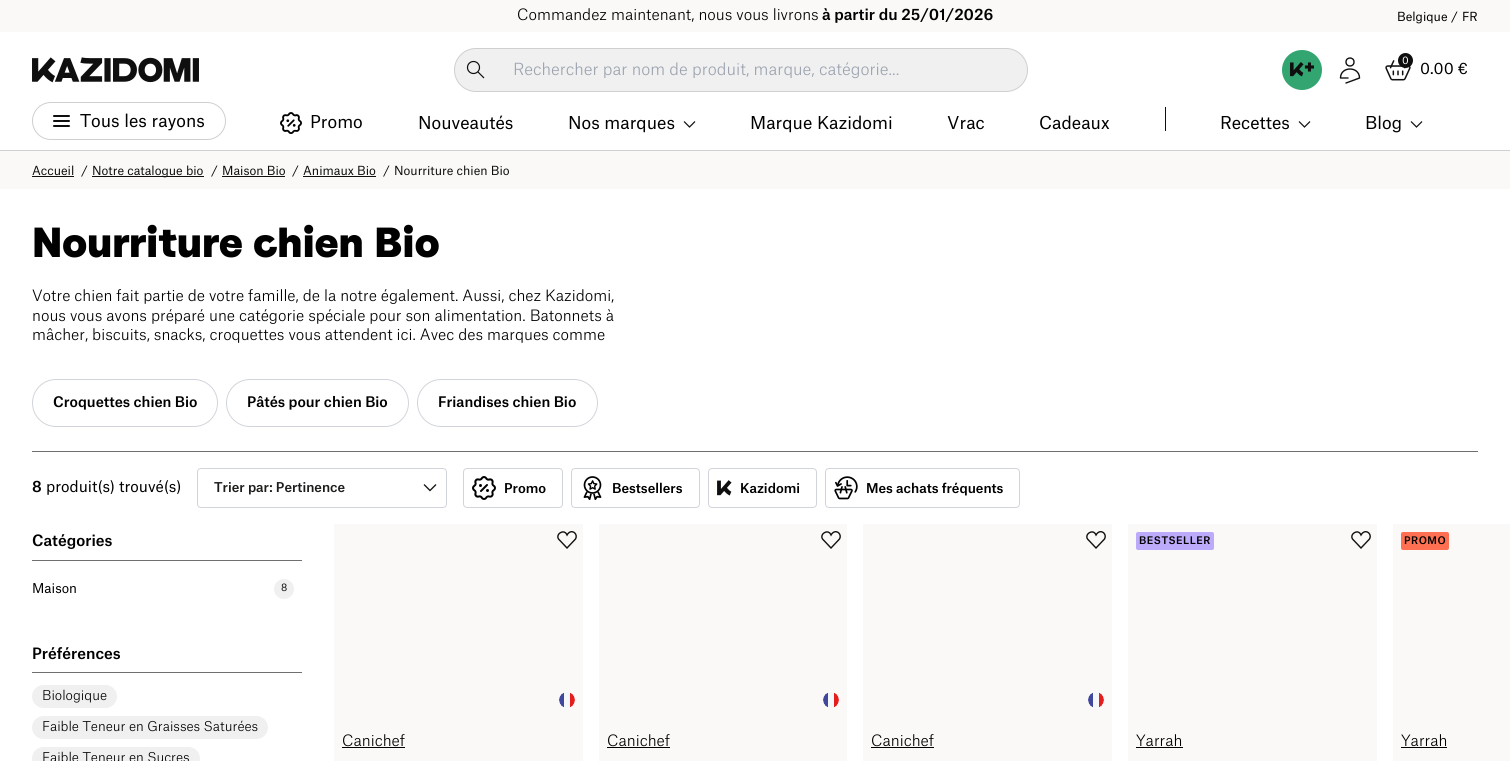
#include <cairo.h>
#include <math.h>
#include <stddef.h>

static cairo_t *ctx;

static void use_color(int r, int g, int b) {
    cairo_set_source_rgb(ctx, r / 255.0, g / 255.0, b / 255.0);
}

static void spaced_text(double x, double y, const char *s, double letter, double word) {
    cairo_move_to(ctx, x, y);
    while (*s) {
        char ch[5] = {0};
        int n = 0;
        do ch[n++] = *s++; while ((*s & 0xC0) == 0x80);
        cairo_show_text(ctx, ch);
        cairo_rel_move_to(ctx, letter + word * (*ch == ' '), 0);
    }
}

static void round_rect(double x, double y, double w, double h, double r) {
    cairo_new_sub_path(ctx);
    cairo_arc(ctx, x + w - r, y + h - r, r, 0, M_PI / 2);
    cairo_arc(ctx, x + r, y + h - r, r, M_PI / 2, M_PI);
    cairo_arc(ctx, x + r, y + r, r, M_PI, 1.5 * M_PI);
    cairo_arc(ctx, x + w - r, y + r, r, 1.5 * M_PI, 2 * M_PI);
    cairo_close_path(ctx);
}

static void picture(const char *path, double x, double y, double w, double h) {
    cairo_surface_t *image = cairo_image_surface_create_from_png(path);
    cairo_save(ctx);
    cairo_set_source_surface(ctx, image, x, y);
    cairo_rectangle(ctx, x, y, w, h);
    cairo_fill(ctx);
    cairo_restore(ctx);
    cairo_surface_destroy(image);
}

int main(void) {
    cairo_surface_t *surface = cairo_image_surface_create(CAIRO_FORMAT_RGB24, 1510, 761);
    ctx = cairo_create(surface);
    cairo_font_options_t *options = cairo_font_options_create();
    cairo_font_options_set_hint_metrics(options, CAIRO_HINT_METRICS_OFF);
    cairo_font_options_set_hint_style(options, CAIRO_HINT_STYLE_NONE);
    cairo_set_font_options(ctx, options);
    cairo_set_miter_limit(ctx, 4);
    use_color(255, 255, 255);
    cairo_paint(ctx);
    use_color(250, 249, 248);
    cairo_rectangle(ctx, 0, 0, 1510, 32);
    cairo_fill(ctx);
    cairo_select_font_face(ctx, "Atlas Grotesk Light", CAIRO_FONT_SLANT_NORMAL, CAIRO_FONT_WEIGHT_NORMAL);
    cairo_set_font_size(ctx, 15);
    use_color(0, 0, 0);
    cairo_move_to(ctx, 517, 20);
    cairo_show_text(ctx, "Commandez maintenant, nous vous livrons");
    cairo_select_font_face(ctx, "Atlas Grotesk Medium", CAIRO_FONT_SLANT_NORMAL, CAIRO_FONT_WEIGHT_NORMAL);
    cairo_move_to(ctx, 822, 20);
    cairo_show_text(ctx, "à partir du 25/01/2026");
    cairo_select_font_face(ctx, "Atlas Grotesk", CAIRO_FONT_SLANT_NORMAL, CAIRO_FONT_WEIGHT_NORMAL);
    cairo_set_font_size(ctx, 12);
    cairo_move_to(ctx, 1397, 21);
    cairo_show_text(ctx, "Belgique");
    cairo_move_to(ctx, 1451, 21);
    cairo_show_text(ctx, "/");
    cairo_move_to(ctx, 1462, 21);
    cairo_show_text(ctx, "FR");
    use_color(207, 207, 207);
    cairo_rectangle(ctx, 0, 150, 1510, 1);
    cairo_fill(ctx);
    picture("img1.png", 32, 57, 167, 26);
    use_color(240, 240, 240);
    round_rect(454.5, 48.5, 573, 43, 21.5);
    cairo_fill_preserve(ctx);
    use_color(207, 207, 207);
    cairo_set_line_width(ctx, 1);
    cairo_stroke(ctx);
    cairo_new_path(ctx);
    cairo_move_to(ctx, 478, 72);
    cairo_line_to(ctx, 484, 78);
    use_color(15, 15, 15);
    cairo_set_line_width(ctx, 1.2);
    cairo_stroke(ctx);
    cairo_arc(ctx, 473.5, 67.5, 6, 0, 2 * M_PI);
    cairo_stroke(ctx);
    cairo_select_font_face(ctx, "Atlas Grotesk Light", CAIRO_FONT_SLANT_NORMAL, CAIRO_FONT_WEIGHT_NORMAL);
    cairo_set_font_size(ctx, 16);
    use_color(156, 163, 175);
    cairo_move_to(ctx, 513, 75);
    cairo_show_text(ctx, "Rechercher par nom de produit, marque, catégorie...");
    use_color(51, 165, 113);
    cairo_new_path(ctx);
    cairo_arc(ctx, 1302, 70, 20, 0, 2 * M_PI);
    cairo_fill(ctx);
    picture("img2.png", 1290, 62, 24, 15);
    cairo_new_path(ctx);
    cairo_move_to(ctx, 1346, 83);
    cairo_line_to(ctx, 1359.5, 78);
    cairo_curve_to(ctx, 1359.5, 66, 1340.5, 66, 1340.5, 78);
    cairo_line_to(ctx, 1348, 78);
    use_color(15, 15, 15);
    cairo_set_line_width(ctx, 1.4);
    cairo_set_line_cap(ctx, CAIRO_LINE_CAP_ROUND);
    cairo_set_line_join(ctx, CAIRO_LINE_JOIN_ROUND);
    cairo_stroke(ctx);
    cairo_arc(ctx, 1350, 62, 4, 0, 2 * M_PI);
    cairo_set_line_cap(ctx, CAIRO_LINE_CAP_BUTT);
    cairo_set_line_join(ctx, CAIRO_LINE_JOIN_MITER);
    cairo_stroke(ctx);
    picture("img3.png", 1385, 60, 26, 21);
    cairo_arc(ctx, 1405.5, 60.5, 7.5, 0, 2 * M_PI);
    cairo_fill(ctx);
    cairo_select_font_face(ctx, "Atlas Grotesk", CAIRO_FONT_SLANT_NORMAL, CAIRO_FONT_WEIGHT_NORMAL);
    cairo_set_font_size(ctx, 10);
    use_color(255, 255, 255);
    cairo_move_to(ctx, 1402, 64);
    cairo_show_text(ctx, "0");
    cairo_set_font_size(ctx, 15);
    use_color(0, 0, 0);
    cairo_move_to(ctx, 1420, 74);
    cairo_show_text(ctx, "0.00 €");
    round_rect(32.5, 102.5, 193, 37, 18.5);
    use_color(207, 207, 207);
    cairo_set_line_width(ctx, 1);
    cairo_stroke(ctx);
    use_color(15, 15, 15);
    round_rect(53, 115, 17, 2, 1);
    cairo_fill(ctx);
    round_rect(53, 120, 17, 2, 1);
    cairo_fill(ctx);
    round_rect(53, 125, 17, 2, 1);
    cairo_fill(ctx);
    cairo_set_font_size(ctx, 17);
    use_color(0, 0, 0);
    cairo_move_to(ctx, 80, 127);
    cairo_show_text(ctx, "Tous les rayons");
    picture("img4.png", 280, 112, 22, 22);
    cairo_move_to(ctx, 310, 128);
    cairo_show_text(ctx, "Promo");
    cairo_move_to(ctx, 418, 129);
    cairo_show_text(ctx, "Nouveautés");
    cairo_move_to(ctx, 568, 129);
    cairo_show_text(ctx, "Nos marques");
    cairo_new_path(ctx);
    cairo_move_to(ctx, 684, 121.5);
    cairo_line_to(ctx, 689.5, 127);
    cairo_line_to(ctx, 695, 121.5);
    use_color(15, 15, 15);
    cairo_set_line_width(ctx, 1.2);
    cairo_stroke(ctx);
    use_color(0, 0, 0);
    cairo_move_to(ctx, 750, 129);
    cairo_show_text(ctx, "Marque Kazidomi");
    cairo_move_to(ctx, 947, 129);
    cairo_show_text(ctx, "Vrac");
    cairo_move_to(ctx, 1039, 129);
    cairo_show_text(ctx, "Cadeaux");
    use_color(15, 15, 15);
    cairo_rectangle(ctx, 1165, 107, 1, 24);
    cairo_fill(ctx);
    use_color(0, 0, 0);
    cairo_move_to(ctx, 1220, 129);
    cairo_show_text(ctx, "Recettes");
    cairo_new_path(ctx);
    cairo_move_to(ctx, 1299, 121.5);
    cairo_line_to(ctx, 1304.5, 127);
    cairo_line_to(ctx, 1310, 121.5);
    use_color(15, 15, 15);
    cairo_stroke(ctx);
    use_color(0, 0, 0);
    cairo_move_to(ctx, 1365, 129);
    cairo_show_text(ctx, "Blog");
    cairo_new_path(ctx);
    cairo_move_to(ctx, 1411, 121.5);
    cairo_line_to(ctx, 1416.5, 127);
    cairo_line_to(ctx, 1422, 121.5);
    use_color(15, 15, 15);
    cairo_stroke(ctx);
    use_color(250, 249, 248);
    cairo_rectangle(ctx, 0, 151, 1510, 38);
    cairo_fill(ctx);
    cairo_set_font_size(ctx, 12);
    use_color(15, 15, 15);
    cairo_move_to(ctx, 32, 175);
    cairo_show_text(ctx, "Accueil");
    cairo_rectangle(ctx, 32, 176, 42, 1);
    cairo_fill(ctx);
    cairo_move_to(ctx, 81, 175);
    cairo_show_text(ctx, "/");
    cairo_rectangle(ctx, 92, 176, 112, 1);
    cairo_fill(ctx);
    cairo_move_to(ctx, 92, 175);
    cairo_show_text(ctx, "Notre catalogue bio");
    cairo_move_to(ctx, 211, 175);
    cairo_show_text(ctx, "/");
    cairo_move_to(ctx, 222, 175);
    cairo_show_text(ctx, "Maison Bio");
    cairo_rectangle(ctx, 222, 176, 63, 1);
    cairo_fill(ctx);
    cairo_move_to(ctx, 292, 175);
    cairo_show_text(ctx, "/");
    cairo_move_to(ctx, 303, 175);
    cairo_show_text(ctx, "Animaux Bio");
    cairo_rectangle(ctx, 303, 176, 73, 1);
    cairo_fill(ctx);
    cairo_move_to(ctx, 383, 175);
    cairo_show_text(ctx, "/");
    cairo_move_to(ctx, 394, 175);
    cairo_show_text(ctx, "Nourriture chien Bio");
    use_color(111, 111, 111);
    cairo_rectangle(ctx, 32, 451, 1446, 1);
    cairo_fill(ctx);
    cairo_select_font_face(ctx, "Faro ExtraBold", CAIRO_FONT_SLANT_NORMAL, CAIRO_FONT_WEIGHT_NORMAL);
    cairo_set_font_size(ctx, 42);
    use_color(0, 0, 0);
    cairo_move_to(ctx, 32, 257);
    cairo_show_text(ctx, "Nourriture chien Bio");
    cairo_select_font_face(ctx, "Atlas Grotesk Light", CAIRO_FONT_SLANT_NORMAL, CAIRO_FONT_WEIGHT_NORMAL);
    cairo_set_font_size(ctx, 15);
    cairo_move_to(ctx, 32, 301);
    cairo_show_text(ctx, "Votre chien fait partie de votre famille, de la notre également. Aussi, chez Kazidomi,");
    cairo_move_to(ctx, 32, 321);
    cairo_show_text(ctx, "nous vous avons préparé une catégorie spéciale pour son alimentation. Batonnets à");
    cairo_move_to(ctx, 32, 340);
    cairo_show_text(ctx, "mâcher, biscuits, snacks, croquettes vous attendent ici. Avec des marques comme");
    round_rect(32.5, 379.5, 185, 47, 23.5);
    use_color(209, 213, 219);
    cairo_set_line_width(ctx, 1);
    cairo_stroke(ctx);
    cairo_select_font_face(ctx, "Atlas Grotesk Medium", CAIRO_FONT_SLANT_NORMAL, CAIRO_FONT_WEIGHT_NORMAL);
    cairo_set_font_size(ctx, 14);
    use_color(0, 0, 0);
    cairo_move_to(ctx, 53, 407);
    cairo_show_text(ctx, "Croquettes chien Bio");
    round_rect(226.5, 379.5, 182, 47, 23.5);
    use_color(209, 213, 219);
    cairo_stroke(ctx);
    use_color(0, 0, 0);
    cairo_move_to(ctx, 247, 407);
    cairo_show_text(ctx, "Pâtés pour chien Bio");
    round_rect(417.5, 379.5, 180, 47, 23.5);
    use_color(209, 213, 219);
    cairo_stroke(ctx);
    use_color(0, 0, 0);
    cairo_move_to(ctx, 438, 407);
    cairo_show_text(ctx, "Friandises chien Bio");
    cairo_set_font_size(ctx, 15);
    cairo_move_to(ctx, 32, 492);
    cairo_show_text(ctx, "8");
    cairo_select_font_face(ctx, "Atlas Grotesk", CAIRO_FONT_SLANT_NORMAL, CAIRO_FONT_WEIGHT_NORMAL);
    cairo_move_to(ctx, 46, 492);
    cairo_show_text(ctx, "produit(s) trouvé(s)");
    cairo_new_path(ctx);
    cairo_move_to(ctx, 424, 484.5);
    cairo_line_to(ctx, 430, 490.5);
    cairo_line_to(ctx, 436, 484.5);
    use_color(15, 15, 15);
    cairo_set_line_width(ctx, 1.3);
    cairo_stroke(ctx);
    round_rect(197.5, 468.5, 249, 39, 3.5);
    use_color(209, 213, 219);
    cairo_set_line_width(ctx, 1);
    cairo_stroke(ctx);
    cairo_select_font_face(ctx, "Atlas Grotesk Medium", CAIRO_FONT_SLANT_NORMAL, CAIRO_FONT_WEIGHT_NORMAL);
    cairo_set_font_size(ctx, 13);
    use_color(29, 29, 27);
    cairo_move_to(ctx, 214, 492);
    cairo_show_text(ctx, "Trier par: Pertinence");
    round_rect(463.5, 468.5, 99, 39, 3.5);
    use_color(209, 213, 219);
    cairo_stroke(ctx);
    picture("img5.png", 472, 476, 24, 24);
    use_color(0, 0, 0);
    cairo_move_to(ctx, 504, 493);
    cairo_show_text(ctx, "Promo");
    round_rect(571.5, 468.5, 128, 39, 3.5);
    use_color(209, 213, 219);
    cairo_stroke(ctx);
    picture("img6.png", 583, 476, 19, 24);
    use_color(0, 0, 0);
    cairo_move_to(ctx, 612, 493);
    cairo_show_text(ctx, "Bestsellers");
    round_rect(708.5, 468.5, 108, 39, 3.5);
    use_color(209, 213, 219);
    cairo_stroke(ctx);
    picture("img7.png", 717, 480, 15, 16);
    use_color(0, 0, 0);
    cairo_move_to(ctx, 740, 493);
    cairo_show_text(ctx, "Kazidomi");
    round_rect(825.5, 468.5, 194, 39, 3.5);
    use_color(209, 213, 219);
    cairo_stroke(ctx);
    picture("img8.png", 834, 476, 24, 24);
    use_color(0, 0, 0);
    cairo_move_to(ctx, 866, 493);
    cairo_show_text(ctx, "Mes achats fréquents");
    use_color(111, 111, 111);
    cairo_rectangle(ctx, 32, 560, 270, 1);
    cairo_fill(ctx);
    cairo_set_font_size(ctx, 15);
    use_color(0, 0, 0);
    cairo_move_to(ctx, 32, 546);
    cairo_show_text(ctx, "Catégories");
    cairo_select_font_face(ctx, "Atlas Grotesk", CAIRO_FONT_SLANT_NORMAL, CAIRO_FONT_WEIGHT_NORMAL);
    cairo_set_font_size(ctx, 13);
    cairo_move_to(ctx, 32, 593);
    cairo_show_text(ctx, "Maison");
    use_color(240, 240, 240);
    cairo_new_path(ctx);
    cairo_arc(ctx, 284, 589, 10, 0, 2 * M_PI);
    cairo_fill(ctx);
    cairo_set_font_size(ctx, 10);
    use_color(15, 15, 15);
    cairo_move_to(ctx, 281, 591);
    cairo_show_text(ctx, "8");
    use_color(111, 111, 111);
    cairo_rectangle(ctx, 32, 672, 270, 1);
    cairo_fill(ctx);
    cairo_select_font_face(ctx, "Atlas Grotesk Medium", CAIRO_FONT_SLANT_NORMAL, CAIRO_FONT_WEIGHT_NORMAL);
    cairo_set_font_size(ctx, 15);
    use_color(0, 0, 0);
    cairo_move_to(ctx, 32, 659);
    cairo_show_text(ctx, "Préférences");
    use_color(240, 240, 240);
    round_rect(32, 685, 85, 23, 11.5);
    cairo_fill(ctx);
    cairo_select_font_face(ctx, "Atlas Grotesk Light", CAIRO_FONT_SLANT_NORMAL, CAIRO_FONT_WEIGHT_NORMAL);
    cairo_set_font_size(ctx, 13);
    use_color(0, 0, 0);
    cairo_move_to(ctx, 42, 700);
    cairo_show_text(ctx, "Biologique");
    use_color(240, 240, 240);
    round_rect(32, 716, 236, 23, 11.5);
    cairo_fill(ctx);
    use_color(0, 0, 0);
    cairo_move_to(ctx, 42, 731);
    cairo_show_text(ctx, "Faible Teneur en Graisses Saturées");
    use_color(240, 240, 240);
    round_rect(32, 747, 168, 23, 11.5);
    cairo_fill(ctx);
    use_color(0, 0, 0);
    cairo_move_to(ctx, 42, 762);
    cairo_show_text(ctx, "Faible Teneur en Sucres");
    use_color(250, 249, 248);
    cairo_rectangle(ctx, 334, 524, 249, 237);
    cairo_fill(ctx);
    cairo_new_path(ctx);
    cairo_move_to(ctx, 566.5, 534);
    cairo_line_to(ctx, 567, 535);
    cairo_curve_to(ctx, 571, 528, 578.5, 533.5, 575.5, 539);
    cairo_line_to(ctx, 567, 548);
    cairo_line_to(ctx, 558.5, 539);
    cairo_curve_to(ctx, 555.5, 534, 563.5, 529, 566.5, 534);
    cairo_close_path(ctx);
    use_color(15, 15, 15);
    cairo_set_line_width(ctx, 1.4);
    cairo_stroke(ctx);
    picture("img9.png", 559, 692, 16, 16);
    cairo_set_font_size(ctx, 15);
    use_color(0, 0, 0);
    cairo_move_to(ctx, 342, 746);
    cairo_show_text(ctx, "Canichef");
    cairo_rectangle(ctx, 342, 747, 63, 1);
    cairo_fill(ctx);
    use_color(250, 249, 248);
    cairo_rectangle(ctx, 599, 524, 248, 237);
    cairo_fill(ctx);
    cairo_new_path(ctx);
    cairo_move_to(ctx, 830.5, 534);
    cairo_line_to(ctx, 831, 535);
    cairo_curve_to(ctx, 835, 528, 842.5, 533.5, 839.5, 539);
    cairo_line_to(ctx, 831, 548);
    cairo_line_to(ctx, 822.5, 539);
    cairo_curve_to(ctx, 819.5, 534, 827.5, 529, 830.5, 534);
    cairo_close_path(ctx);
    use_color(15, 15, 15);
    cairo_stroke(ctx);
    picture("img9.png", 823, 692, 16, 16);
    use_color(0, 0, 0);
    cairo_move_to(ctx, 607, 746);
    cairo_show_text(ctx, "Canichef");
    cairo_rectangle(ctx, 607, 747, 63, 1);
    cairo_fill(ctx);
    use_color(250, 249, 248);
    cairo_rectangle(ctx, 863, 524, 249, 237);
    cairo_fill(ctx);
    cairo_new_path(ctx);
    cairo_move_to(ctx, 1095.5, 534);
    cairo_line_to(ctx, 1096, 535);
    cairo_curve_to(ctx, 1100, 528, 1107.5, 533.5, 1104.5, 539);
    cairo_line_to(ctx, 1096, 548);
    cairo_line_to(ctx, 1087.5, 539);
    cairo_curve_to(ctx, 1084.5, 534, 1092.5, 529, 1095.5, 534);
    cairo_close_path(ctx);
    use_color(15, 15, 15);
    cairo_stroke(ctx);
    picture("img9.png", 1088, 692, 16, 16);
    use_color(0, 0, 0);
    cairo_move_to(ctx, 871, 746);
    cairo_show_text(ctx, "Canichef");
    cairo_rectangle(ctx, 871, 747, 63, 1);
    cairo_fill(ctx);
    use_color(250, 249, 248);
    cairo_rectangle(ctx, 1128, 524, 249, 237);
    cairo_fill(ctx);
    use_color(188, 170, 250);
    round_rect(1136, 532, 78, 18, 2);
    cairo_fill(ctx);
    cairo_select_font_face(ctx, "Atlas Grotesk Medium", CAIRO_FONT_SLANT_NORMAL, CAIRO_FONT_WEIGHT_NORMAL);
    cairo_set_font_size(ctx, 10);
    use_color(0, 0, 0);
    spaced_text(1139, 544, "BESTSELLER", 0.5, 0);
    cairo_new_path(ctx);
    cairo_move_to(ctx, 1360.5, 534);
    cairo_line_to(ctx, 1361, 535);
    cairo_curve_to(ctx, 1365, 528, 1372.5, 533.5, 1369.5, 539);
    cairo_line_to(ctx, 1361, 548);
    cairo_line_to(ctx, 1352.5, 539);
    cairo_curve_to(ctx, 1349.5, 534, 1357.5, 529, 1360.5, 534);
    cairo_close_path(ctx);
    use_color(15, 15, 15);
    cairo_stroke(ctx);
    cairo_select_font_face(ctx, "Atlas Grotesk Light", CAIRO_FONT_SLANT_NORMAL, CAIRO_FONT_WEIGHT_NORMAL);
    cairo_set_font_size(ctx, 15);
    use_color(0, 0, 0);
    cairo_move_to(ctx, 1136, 746);
    cairo_show_text(ctx, "Yarrah");
    cairo_rectangle(ctx, 1136, 747, 47, 1);
    cairo_fill(ctx);
    use_color(250, 249, 248);
    cairo_rectangle(ctx, 1393, 524, 117, 237);
    cairo_fill(ctx);
    use_color(255, 112, 82);
    round_rect(1401, 532, 48, 18, 2);
    cairo_fill(ctx);
    cairo_select_font_face(ctx, "Atlas Grotesk Medium", CAIRO_FONT_SLANT_NORMAL, CAIRO_FONT_WEIGHT_NORMAL);
    cairo_set_font_size(ctx, 10);
    use_color(0, 0, 0);
    spaced_text(1404, 544, "PROMO", 0.5, 0);
    cairo_select_font_face(ctx, "Atlas Grotesk Light", CAIRO_FONT_SLANT_NORMAL, CAIRO_FONT_WEIGHT_NORMAL);
    cairo_set_font_size(ctx, 15);
    cairo_move_to(ctx, 1401, 746);
    cairo_show_text(ctx, "Yarrah");
    cairo_rectangle(ctx, 1401, 747, 46, 1);
    cairo_fill(ctx);
    cairo_surface_write_to_png(surface, "result.png");
    cairo_font_options_destroy(options);
    cairo_destroy(ctx);
    cairo_surface_destroy(surface);
    return 0;
}
